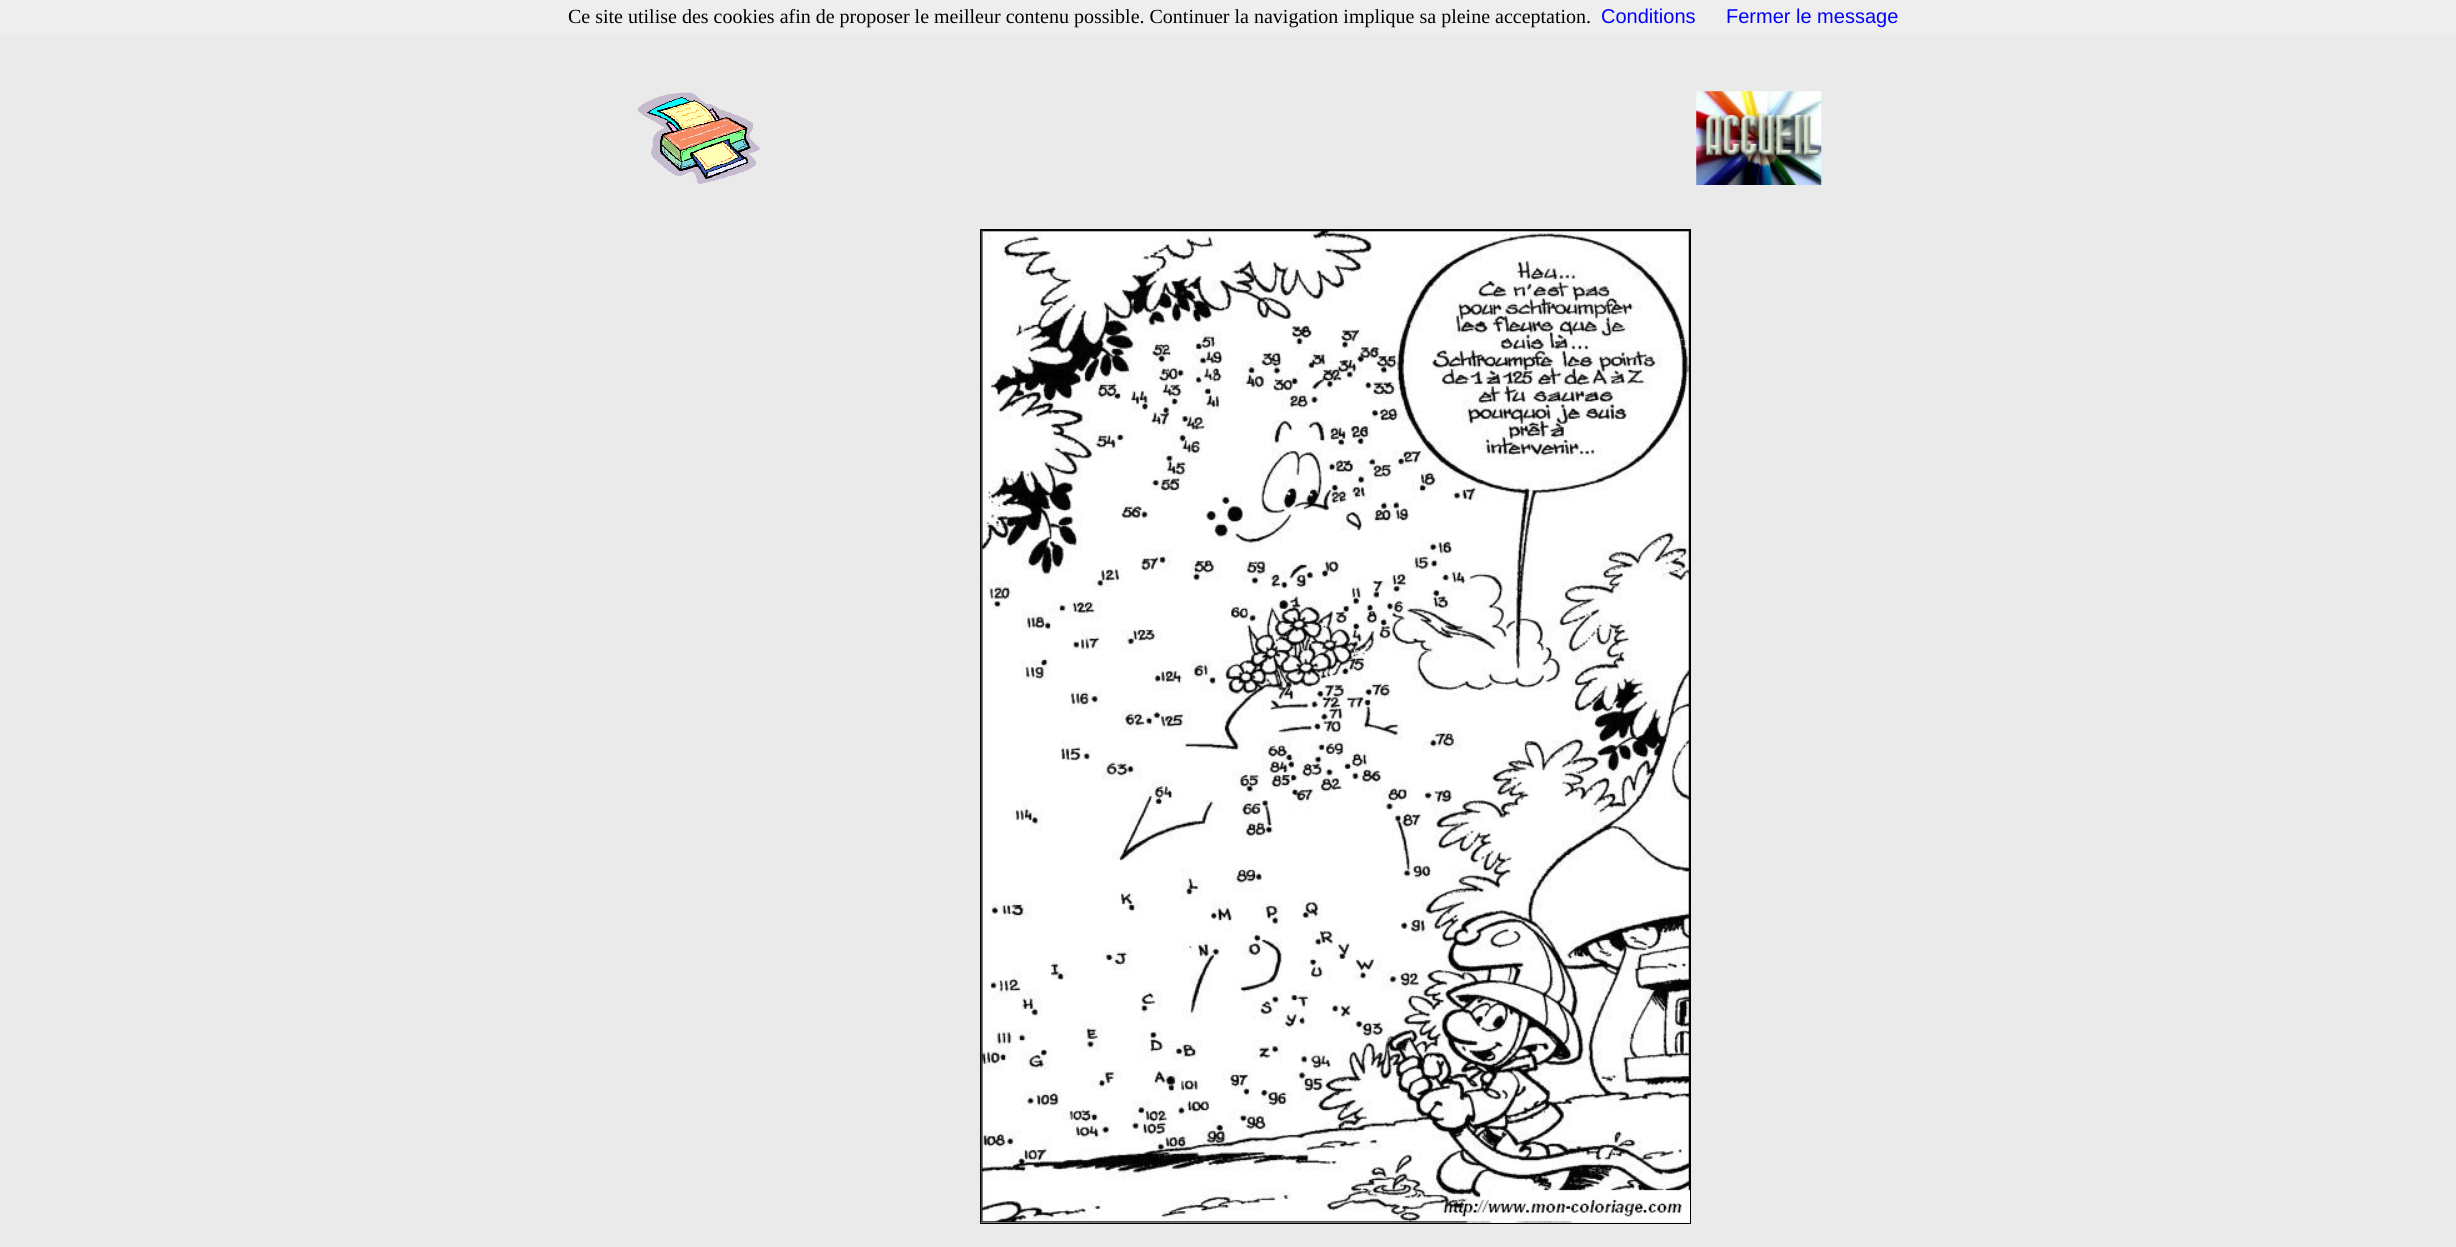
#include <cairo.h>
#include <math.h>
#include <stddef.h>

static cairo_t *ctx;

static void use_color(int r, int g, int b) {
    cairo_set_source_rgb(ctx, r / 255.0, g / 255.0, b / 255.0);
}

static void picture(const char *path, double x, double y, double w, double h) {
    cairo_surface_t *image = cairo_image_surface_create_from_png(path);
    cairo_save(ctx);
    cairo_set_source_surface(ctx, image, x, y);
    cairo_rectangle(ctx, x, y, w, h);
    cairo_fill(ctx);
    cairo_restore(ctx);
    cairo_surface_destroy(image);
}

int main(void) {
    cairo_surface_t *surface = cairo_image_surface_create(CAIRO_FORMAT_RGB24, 2456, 1247);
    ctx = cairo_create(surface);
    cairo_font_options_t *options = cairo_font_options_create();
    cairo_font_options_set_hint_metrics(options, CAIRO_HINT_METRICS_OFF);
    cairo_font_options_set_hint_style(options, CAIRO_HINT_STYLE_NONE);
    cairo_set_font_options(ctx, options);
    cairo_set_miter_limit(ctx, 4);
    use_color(234, 234, 234);
    cairo_paint(ctx);
    use_color(238, 238, 238);
    cairo_rectangle(ctx, 0, 0, 2456, 33);
    cairo_fill(ctx);
    cairo_select_font_face(ctx, "Liberation Serif", CAIRO_FONT_SLANT_NORMAL, CAIRO_FONT_WEIGHT_NORMAL);
    cairo_set_font_size(ctx, 20);
    use_color(0, 0, 0);
    cairo_move_to(ctx, 568, 23);
    cairo_show_text(ctx, "Ce site utilise des cookies afin de proposer le meilleur contenu possible. Continuer la navigation implique sa pleine acceptation.");
    cairo_select_font_face(ctx, "Liberation Sans", CAIRO_FONT_SLANT_NORMAL, CAIRO_FONT_WEIGHT_NORMAL);
    use_color(0, 0, 255);
    cairo_move_to(ctx, 1601, 23);
    cairo_show_text(ctx, "Conditions");
    cairo_move_to(ctx, 1726, 23);
    cairo_show_text(ctx, "Fermer le message");
    picture("img1.png", 638, 92, 122, 92);
    picture("img2.png", 1696, 91, 126, 94);
    cairo_rectangle(ctx, 980.5, 229.5, 710, 994);
    use_color(0, 0, 0);
    cairo_set_line_width(ctx, 1);
    cairo_stroke(ctx);
    picture("img3.png", 981, 230, 709, 993);
    cairo_surface_write_to_png(surface, "result.png");
    cairo_font_options_destroy(options);
    cairo_destroy(ctx);
    cairo_surface_destroy(surface);
    return 0;
}
